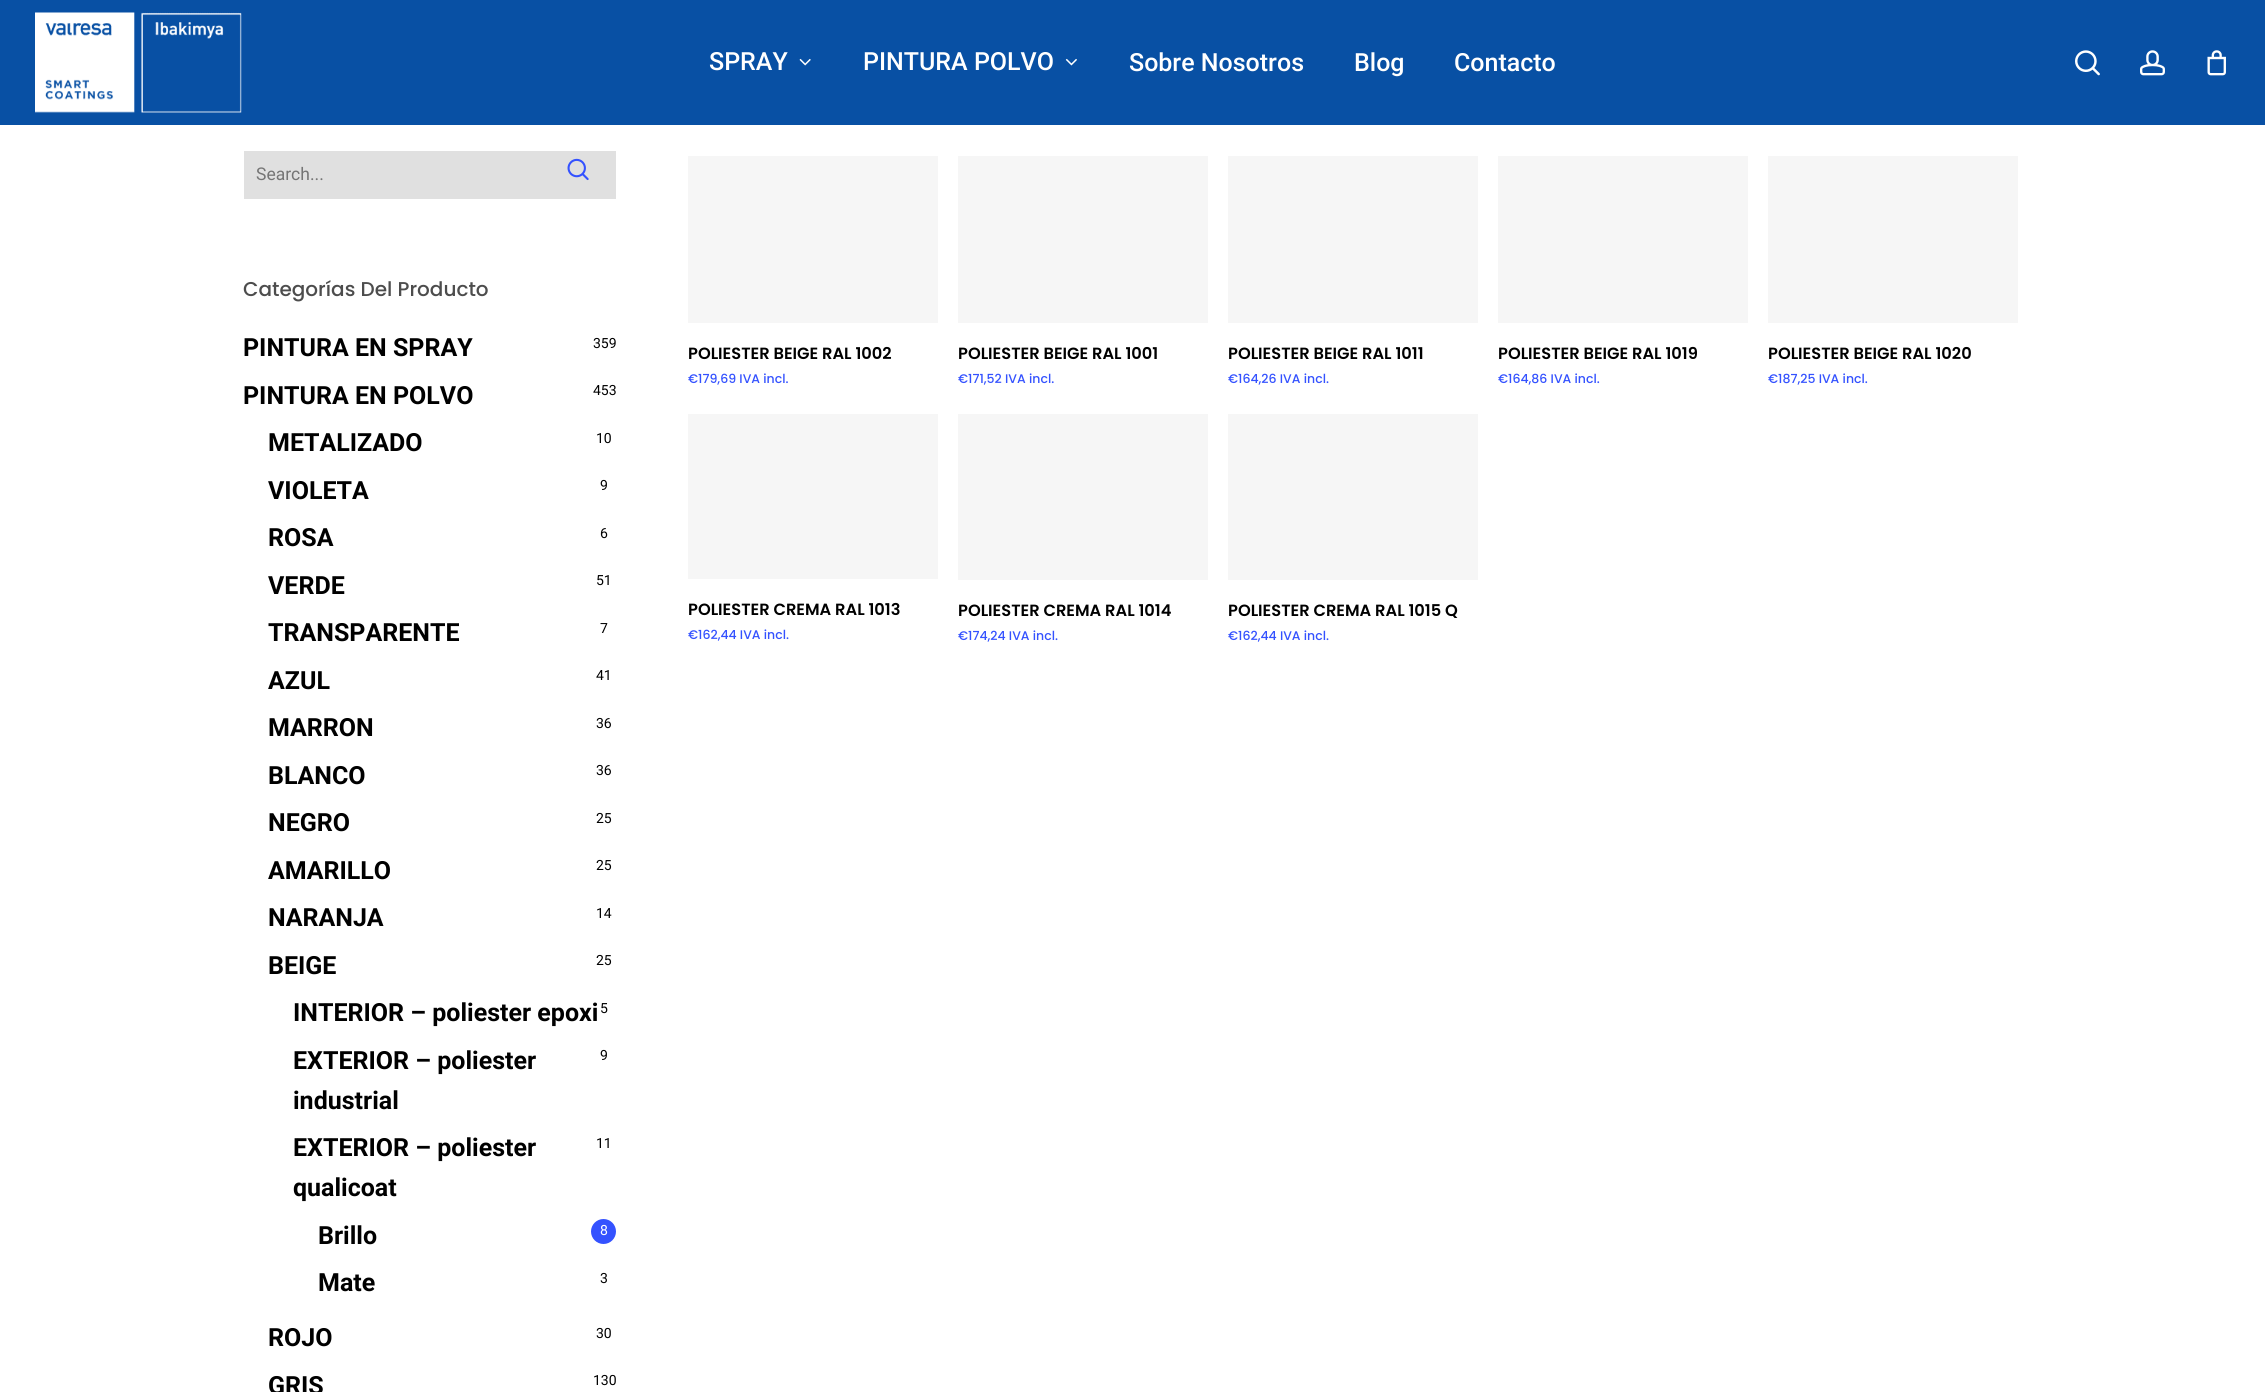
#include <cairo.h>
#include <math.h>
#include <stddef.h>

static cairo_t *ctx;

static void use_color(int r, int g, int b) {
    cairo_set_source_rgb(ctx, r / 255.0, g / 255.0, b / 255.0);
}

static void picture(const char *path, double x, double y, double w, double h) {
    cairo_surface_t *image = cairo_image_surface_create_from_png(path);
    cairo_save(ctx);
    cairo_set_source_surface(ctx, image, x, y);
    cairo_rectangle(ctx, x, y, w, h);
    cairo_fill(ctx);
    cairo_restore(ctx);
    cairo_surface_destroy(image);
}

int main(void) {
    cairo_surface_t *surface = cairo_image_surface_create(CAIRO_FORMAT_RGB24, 2265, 1392);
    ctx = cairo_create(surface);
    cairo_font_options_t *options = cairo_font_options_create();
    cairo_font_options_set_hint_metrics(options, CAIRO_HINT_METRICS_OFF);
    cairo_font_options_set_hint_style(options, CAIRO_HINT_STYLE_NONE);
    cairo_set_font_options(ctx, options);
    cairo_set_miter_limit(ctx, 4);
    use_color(255, 255, 255);
    cairo_paint(ctx);
    use_color(8, 80, 164);
    cairo_rectangle(ctx, 0, 0, 2265, 125);
    cairo_fill(ctx);
    picture("img1.png", 35, 12, 207, 101);
    cairo_select_font_face(ctx, "Roboto Medium", CAIRO_FONT_SLANT_NORMAL, CAIRO_FONT_WEIGHT_NORMAL);
    cairo_set_font_size(ctx, 25);
    use_color(255, 255, 255);
    cairo_move_to(ctx, 709, 70);
    cairo_show_text(ctx, "SPRAY");
    picture("img2.png", 799, 58, 12, 8);
    cairo_move_to(ctx, 863, 70);
    cairo_show_text(ctx, "PINTURA POLVO");
    picture("img3.png", 1065, 58, 12, 8);
    cairo_move_to(ctx, 1129, 71);
    cairo_show_text(ctx, "Sobre Nosotros");
    cairo_move_to(ctx, 1354, 71);
    cairo_show_text(ctx, "Blog");
    cairo_move_to(ctx, 1454, 71);
    cairo_show_text(ctx, "Contacto");
    picture("img4.png", 2075, 50, 25, 26);
    picture("img5.png", 2140, 50, 25, 26);
    picture("img6.png", 2207, 50, 19, 26);
    use_color(224, 224, 224);
    cairo_rectangle(ctx, 244, 151, 372, 48);
    cairo_fill(ctx);
    cairo_select_font_face(ctx, "Roboto", CAIRO_FONT_SLANT_NORMAL, CAIRO_FONT_WEIGHT_NORMAL);
    cairo_set_font_size(ctx, 17.5);
    use_color(117, 117, 117);
    cairo_move_to(ctx, 256, 180);
    cairo_show_text(ctx, "Search...");
    picture("img7.png", 567, 158, 22, 23);
    cairo_select_font_face(ctx, "Poppins Medium", CAIRO_FONT_SLANT_NORMAL, CAIRO_FONT_WEIGHT_NORMAL);
    cairo_set_font_size(ctx, 20);
    use_color(77, 77, 77);
    cairo_move_to(ctx, 243, 296);
    cairo_show_text(ctx, "Categorías Del Producto");
    cairo_select_font_face(ctx, "Roboto", CAIRO_FONT_SLANT_NORMAL, CAIRO_FONT_WEIGHT_BOLD);
    cairo_set_font_size(ctx, 25);
    use_color(0, 0, 0);
    cairo_move_to(ctx, 243, 356);
    cairo_show_text(ctx, "PINTURA EN SPRAY");
    cairo_select_font_face(ctx, "Roboto", CAIRO_FONT_SLANT_NORMAL, CAIRO_FONT_WEIGHT_NORMAL);
    cairo_set_font_size(ctx, 14);
    cairo_move_to(ctx, 593, 348);
    cairo_show_text(ctx, "359");
    cairo_select_font_face(ctx, "Roboto", CAIRO_FONT_SLANT_NORMAL, CAIRO_FONT_WEIGHT_BOLD);
    cairo_set_font_size(ctx, 25);
    cairo_move_to(ctx, 243, 404);
    cairo_show_text(ctx, "PINTURA EN POLVO");
    cairo_select_font_face(ctx, "Roboto", CAIRO_FONT_SLANT_NORMAL, CAIRO_FONT_WEIGHT_NORMAL);
    cairo_set_font_size(ctx, 14);
    cairo_move_to(ctx, 593, 395);
    cairo_show_text(ctx, "453");
    cairo_select_font_face(ctx, "Roboto", CAIRO_FONT_SLANT_NORMAL, CAIRO_FONT_WEIGHT_BOLD);
    cairo_set_font_size(ctx, 25);
    cairo_move_to(ctx, 268, 451);
    cairo_show_text(ctx, "METALIZADO");
    cairo_select_font_face(ctx, "Roboto", CAIRO_FONT_SLANT_NORMAL, CAIRO_FONT_WEIGHT_NORMAL);
    cairo_set_font_size(ctx, 14);
    cairo_move_to(ctx, 596, 443);
    cairo_show_text(ctx, "10");
    cairo_select_font_face(ctx, "Roboto", CAIRO_FONT_SLANT_NORMAL, CAIRO_FONT_WEIGHT_BOLD);
    cairo_set_font_size(ctx, 25);
    cairo_move_to(ctx, 268, 499);
    cairo_show_text(ctx, "VIOLETA");
    cairo_select_font_face(ctx, "Roboto", CAIRO_FONT_SLANT_NORMAL, CAIRO_FONT_WEIGHT_NORMAL);
    cairo_set_font_size(ctx, 14);
    cairo_move_to(ctx, 600, 490);
    cairo_show_text(ctx, "9");
    cairo_select_font_face(ctx, "Roboto", CAIRO_FONT_SLANT_NORMAL, CAIRO_FONT_WEIGHT_BOLD);
    cairo_set_font_size(ctx, 25);
    cairo_move_to(ctx, 268, 546);
    cairo_show_text(ctx, "ROSA");
    cairo_select_font_face(ctx, "Roboto", CAIRO_FONT_SLANT_NORMAL, CAIRO_FONT_WEIGHT_NORMAL);
    cairo_set_font_size(ctx, 14);
    cairo_move_to(ctx, 600, 538);
    cairo_show_text(ctx, "6");
    cairo_select_font_face(ctx, "Roboto", CAIRO_FONT_SLANT_NORMAL, CAIRO_FONT_WEIGHT_BOLD);
    cairo_set_font_size(ctx, 25);
    cairo_move_to(ctx, 268, 594);
    cairo_show_text(ctx, "VERDE");
    cairo_select_font_face(ctx, "Roboto", CAIRO_FONT_SLANT_NORMAL, CAIRO_FONT_WEIGHT_NORMAL);
    cairo_set_font_size(ctx, 14);
    cairo_move_to(ctx, 596, 585);
    cairo_show_text(ctx, "51");
    cairo_select_font_face(ctx, "Roboto", CAIRO_FONT_SLANT_NORMAL, CAIRO_FONT_WEIGHT_BOLD);
    cairo_set_font_size(ctx, 25);
    cairo_move_to(ctx, 268, 641);
    cairo_show_text(ctx, "TRANSPARENTE");
    cairo_select_font_face(ctx, "Roboto", CAIRO_FONT_SLANT_NORMAL, CAIRO_FONT_WEIGHT_NORMAL);
    cairo_set_font_size(ctx, 14);
    cairo_move_to(ctx, 600, 633);
    cairo_show_text(ctx, "7");
    cairo_select_font_face(ctx, "Roboto", CAIRO_FONT_SLANT_NORMAL, CAIRO_FONT_WEIGHT_BOLD);
    cairo_set_font_size(ctx, 25);
    cairo_move_to(ctx, 268, 689);
    cairo_show_text(ctx, "AZUL");
    cairo_select_font_face(ctx, "Roboto", CAIRO_FONT_SLANT_NORMAL, CAIRO_FONT_WEIGHT_NORMAL);
    cairo_set_font_size(ctx, 14);
    cairo_move_to(ctx, 596, 680);
    cairo_show_text(ctx, "41");
    cairo_select_font_face(ctx, "Roboto", CAIRO_FONT_SLANT_NORMAL, CAIRO_FONT_WEIGHT_BOLD);
    cairo_set_font_size(ctx, 25);
    cairo_move_to(ctx, 268, 736);
    cairo_show_text(ctx, "MARRON");
    cairo_select_font_face(ctx, "Roboto", CAIRO_FONT_SLANT_NORMAL, CAIRO_FONT_WEIGHT_NORMAL);
    cairo_set_font_size(ctx, 14);
    cairo_move_to(ctx, 596, 728);
    cairo_show_text(ctx, "36");
    cairo_select_font_face(ctx, "Roboto", CAIRO_FONT_SLANT_NORMAL, CAIRO_FONT_WEIGHT_BOLD);
    cairo_set_font_size(ctx, 25);
    cairo_move_to(ctx, 268, 784);
    cairo_show_text(ctx, "BLANCO");
    cairo_select_font_face(ctx, "Roboto", CAIRO_FONT_SLANT_NORMAL, CAIRO_FONT_WEIGHT_NORMAL);
    cairo_set_font_size(ctx, 14);
    cairo_move_to(ctx, 596, 775);
    cairo_show_text(ctx, "36");
    cairo_select_font_face(ctx, "Roboto", CAIRO_FONT_SLANT_NORMAL, CAIRO_FONT_WEIGHT_BOLD);
    cairo_set_font_size(ctx, 25);
    cairo_move_to(ctx, 268, 831);
    cairo_show_text(ctx, "NEGRO");
    cairo_select_font_face(ctx, "Roboto", CAIRO_FONT_SLANT_NORMAL, CAIRO_FONT_WEIGHT_NORMAL);
    cairo_set_font_size(ctx, 14);
    cairo_move_to(ctx, 596, 823);
    cairo_show_text(ctx, "25");
    cairo_select_font_face(ctx, "Roboto", CAIRO_FONT_SLANT_NORMAL, CAIRO_FONT_WEIGHT_BOLD);
    cairo_set_font_size(ctx, 25);
    cairo_move_to(ctx, 268, 879);
    cairo_show_text(ctx, "AMARILLO");
    cairo_select_font_face(ctx, "Roboto", CAIRO_FONT_SLANT_NORMAL, CAIRO_FONT_WEIGHT_NORMAL);
    cairo_set_font_size(ctx, 14);
    cairo_move_to(ctx, 596, 870);
    cairo_show_text(ctx, "25");
    cairo_select_font_face(ctx, "Roboto", CAIRO_FONT_SLANT_NORMAL, CAIRO_FONT_WEIGHT_BOLD);
    cairo_set_font_size(ctx, 25);
    cairo_move_to(ctx, 268, 926);
    cairo_show_text(ctx, "NARANJA");
    cairo_select_font_face(ctx, "Roboto", CAIRO_FONT_SLANT_NORMAL, CAIRO_FONT_WEIGHT_NORMAL);
    cairo_set_font_size(ctx, 14);
    cairo_move_to(ctx, 596, 918);
    cairo_show_text(ctx, "14");
    cairo_select_font_face(ctx, "Roboto", CAIRO_FONT_SLANT_NORMAL, CAIRO_FONT_WEIGHT_BOLD);
    cairo_set_font_size(ctx, 25);
    cairo_move_to(ctx, 268, 974);
    cairo_show_text(ctx, "BEIGE");
    cairo_select_font_face(ctx, "Roboto", CAIRO_FONT_SLANT_NORMAL, CAIRO_FONT_WEIGHT_NORMAL);
    cairo_set_font_size(ctx, 14);
    cairo_move_to(ctx, 596, 965);
    cairo_show_text(ctx, "25");
    cairo_select_font_face(ctx, "Roboto", CAIRO_FONT_SLANT_NORMAL, CAIRO_FONT_WEIGHT_BOLD);
    cairo_set_font_size(ctx, 25);
    cairo_move_to(ctx, 293, 1021);
    cairo_show_text(ctx, "INTERIOR – poliester epoxi");
    cairo_select_font_face(ctx, "Roboto", CAIRO_FONT_SLANT_NORMAL, CAIRO_FONT_WEIGHT_NORMAL);
    cairo_set_font_size(ctx, 14);
    cairo_move_to(ctx, 600, 1013);
    cairo_show_text(ctx, "5");
    cairo_select_font_face(ctx, "Roboto", CAIRO_FONT_SLANT_NORMAL, CAIRO_FONT_WEIGHT_BOLD);
    cairo_set_font_size(ctx, 25);
    cairo_move_to(ctx, 293, 1069);
    cairo_show_text(ctx, "EXTERIOR – poliester");
    cairo_move_to(ctx, 293, 1109);
    cairo_show_text(ctx, "industrial");
    cairo_select_font_face(ctx, "Roboto", CAIRO_FONT_SLANT_NORMAL, CAIRO_FONT_WEIGHT_NORMAL);
    cairo_set_font_size(ctx, 14);
    cairo_move_to(ctx, 600, 1060);
    cairo_show_text(ctx, "9");
    cairo_select_font_face(ctx, "Roboto", CAIRO_FONT_SLANT_NORMAL, CAIRO_FONT_WEIGHT_BOLD);
    cairo_set_font_size(ctx, 25);
    cairo_move_to(ctx, 293, 1156);
    cairo_show_text(ctx, "EXTERIOR – poliester");
    cairo_move_to(ctx, 293, 1196);
    cairo_show_text(ctx, "qualicoat");
    cairo_select_font_face(ctx, "Roboto", CAIRO_FONT_SLANT_NORMAL, CAIRO_FONT_WEIGHT_NORMAL);
    cairo_set_font_size(ctx, 14);
    cairo_move_to(ctx, 596, 1148);
    cairo_show_text(ctx, "11");
    cairo_select_font_face(ctx, "Roboto", CAIRO_FONT_SLANT_NORMAL, CAIRO_FONT_WEIGHT_BOLD);
    cairo_set_font_size(ctx, 25);
    cairo_move_to(ctx, 318, 1244);
    cairo_show_text(ctx, "Brillo");
    use_color(52, 82, 255);
    cairo_new_path(ctx);
    cairo_arc(ctx, 603.5, 1231.5, 12.5, 0, 2 * M_PI);
    cairo_fill(ctx);
    cairo_select_font_face(ctx, "Roboto", CAIRO_FONT_SLANT_NORMAL, CAIRO_FONT_WEIGHT_NORMAL);
    cairo_set_font_size(ctx, 14);
    use_color(255, 255, 255);
    cairo_move_to(ctx, 600, 1235);
    cairo_show_text(ctx, "8");
    cairo_select_font_face(ctx, "Roboto", CAIRO_FONT_SLANT_NORMAL, CAIRO_FONT_WEIGHT_BOLD);
    cairo_set_font_size(ctx, 25);
    use_color(0, 0, 0);
    cairo_move_to(ctx, 318, 1291);
    cairo_show_text(ctx, "Mate");
    cairo_select_font_face(ctx, "Roboto", CAIRO_FONT_SLANT_NORMAL, CAIRO_FONT_WEIGHT_NORMAL);
    cairo_set_font_size(ctx, 14);
    cairo_move_to(ctx, 600, 1283);
    cairo_show_text(ctx, "3");
    cairo_select_font_face(ctx, "Roboto", CAIRO_FONT_SLANT_NORMAL, CAIRO_FONT_WEIGHT_BOLD);
    cairo_set_font_size(ctx, 25);
    cairo_move_to(ctx, 268, 1346);
    cairo_show_text(ctx, "ROJO");
    cairo_select_font_face(ctx, "Roboto", CAIRO_FONT_SLANT_NORMAL, CAIRO_FONT_WEIGHT_NORMAL);
    cairo_set_font_size(ctx, 14);
    cairo_move_to(ctx, 596, 1338);
    cairo_show_text(ctx, "30");
    cairo_select_font_face(ctx, "Roboto", CAIRO_FONT_SLANT_NORMAL, CAIRO_FONT_WEIGHT_BOLD);
    cairo_set_font_size(ctx, 25);
    cairo_move_to(ctx, 268, 1394);
    cairo_show_text(ctx, "GRIS");
    cairo_select_font_face(ctx, "Roboto", CAIRO_FONT_SLANT_NORMAL, CAIRO_FONT_WEIGHT_NORMAL);
    cairo_set_font_size(ctx, 14);
    cairo_move_to(ctx, 593, 1385);
    cairo_show_text(ctx, "130");
    use_color(246, 246, 246);
    cairo_rectangle(ctx, 688, 156, 250, 167);
    cairo_fill(ctx);
    cairo_select_font_face(ctx, "Poppins SemiBold", CAIRO_FONT_SLANT_NORMAL, CAIRO_FONT_WEIGHT_NORMAL);
    cairo_set_font_size(ctx, 16.25);
    use_color(0, 0, 0);
    cairo_move_to(ctx, 688, 359);
    cairo_show_text(ctx, "POLIESTER BEIGE RAL 1002");
    cairo_select_font_face(ctx, "Poppins Medium", CAIRO_FONT_SLANT_NORMAL, CAIRO_FONT_WEIGHT_NORMAL);
    cairo_set_font_size(ctx, 12.5);
    use_color(52, 82, 255);
    cairo_move_to(ctx, 688, 383);
    cairo_show_text(ctx, "€179,69 IVA incl.");
    use_color(246, 246, 246);
    cairo_rectangle(ctx, 958, 156, 250, 167);
    cairo_fill(ctx);
    cairo_select_font_face(ctx, "Poppins SemiBold", CAIRO_FONT_SLANT_NORMAL, CAIRO_FONT_WEIGHT_NORMAL);
    cairo_set_font_size(ctx, 16.25);
    use_color(0, 0, 0);
    cairo_move_to(ctx, 958, 359);
    cairo_show_text(ctx, "POLIESTER BEIGE RAL 1001");
    cairo_select_font_face(ctx, "Poppins Medium", CAIRO_FONT_SLANT_NORMAL, CAIRO_FONT_WEIGHT_NORMAL);
    cairo_set_font_size(ctx, 12.5);
    use_color(52, 82, 255);
    cairo_move_to(ctx, 958, 383);
    cairo_show_text(ctx, "€171,52 IVA incl.");
    use_color(246, 246, 246);
    cairo_rectangle(ctx, 1228, 156, 250, 167);
    cairo_fill(ctx);
    cairo_select_font_face(ctx, "Poppins SemiBold", CAIRO_FONT_SLANT_NORMAL, CAIRO_FONT_WEIGHT_NORMAL);
    cairo_set_font_size(ctx, 16.25);
    use_color(0, 0, 0);
    cairo_move_to(ctx, 1228, 359);
    cairo_show_text(ctx, "POLIESTER BEIGE RAL 1011");
    cairo_select_font_face(ctx, "Poppins Medium", CAIRO_FONT_SLANT_NORMAL, CAIRO_FONT_WEIGHT_NORMAL);
    cairo_set_font_size(ctx, 12.5);
    use_color(52, 82, 255);
    cairo_move_to(ctx, 1228, 383);
    cairo_show_text(ctx, "€164,26 IVA incl.");
    use_color(246, 246, 246);
    cairo_rectangle(ctx, 1498, 156, 250, 167);
    cairo_fill(ctx);
    cairo_select_font_face(ctx, "Poppins SemiBold", CAIRO_FONT_SLANT_NORMAL, CAIRO_FONT_WEIGHT_NORMAL);
    cairo_set_font_size(ctx, 16.25);
    use_color(0, 0, 0);
    cairo_move_to(ctx, 1498, 359);
    cairo_show_text(ctx, "POLIESTER BEIGE RAL 1019");
    cairo_select_font_face(ctx, "Poppins Medium", CAIRO_FONT_SLANT_NORMAL, CAIRO_FONT_WEIGHT_NORMAL);
    cairo_set_font_size(ctx, 12.5);
    use_color(52, 82, 255);
    cairo_move_to(ctx, 1498, 383);
    cairo_show_text(ctx, "€164,86 IVA incl.");
    use_color(246, 246, 246);
    cairo_rectangle(ctx, 1768, 156, 250, 167);
    cairo_fill(ctx);
    cairo_select_font_face(ctx, "Poppins SemiBold", CAIRO_FONT_SLANT_NORMAL, CAIRO_FONT_WEIGHT_NORMAL);
    cairo_set_font_size(ctx, 16.25);
    use_color(0, 0, 0);
    cairo_move_to(ctx, 1768, 359);
    cairo_show_text(ctx, "POLIESTER BEIGE RAL 1020");
    cairo_select_font_face(ctx, "Poppins Medium", CAIRO_FONT_SLANT_NORMAL, CAIRO_FONT_WEIGHT_NORMAL);
    cairo_set_font_size(ctx, 12.5);
    use_color(52, 82, 255);
    cairo_move_to(ctx, 1768, 383);
    cairo_show_text(ctx, "€187,25 IVA incl.");
    use_color(246, 246, 246);
    cairo_rectangle(ctx, 688, 414, 250, 165);
    cairo_fill(ctx);
    cairo_select_font_face(ctx, "Poppins SemiBold", CAIRO_FONT_SLANT_NORMAL, CAIRO_FONT_WEIGHT_NORMAL);
    cairo_set_font_size(ctx, 16.25);
    use_color(0, 0, 0);
    cairo_move_to(ctx, 688, 615);
    cairo_show_text(ctx, "POLIESTER CREMA RAL 1013");
    cairo_select_font_face(ctx, "Poppins Medium", CAIRO_FONT_SLANT_NORMAL, CAIRO_FONT_WEIGHT_NORMAL);
    cairo_set_font_size(ctx, 12.5);
    use_color(52, 82, 255);
    cairo_move_to(ctx, 688, 639);
    cairo_show_text(ctx, "€162,44 IVA incl.");
    use_color(246, 246, 246);
    cairo_rectangle(ctx, 958, 414, 250, 166);
    cairo_fill(ctx);
    cairo_select_font_face(ctx, "Poppins SemiBold", CAIRO_FONT_SLANT_NORMAL, CAIRO_FONT_WEIGHT_NORMAL);
    cairo_set_font_size(ctx, 16.25);
    use_color(0, 0, 0);
    cairo_move_to(ctx, 958, 616);
    cairo_show_text(ctx, "POLIESTER CREMA RAL 1014");
    cairo_select_font_face(ctx, "Poppins Medium", CAIRO_FONT_SLANT_NORMAL, CAIRO_FONT_WEIGHT_NORMAL);
    cairo_set_font_size(ctx, 12.5);
    use_color(52, 82, 255);
    cairo_move_to(ctx, 958, 640);
    cairo_show_text(ctx, "€174,24 IVA incl.");
    use_color(246, 246, 246);
    cairo_rectangle(ctx, 1228, 414, 250, 166);
    cairo_fill(ctx);
    cairo_select_font_face(ctx, "Poppins SemiBold", CAIRO_FONT_SLANT_NORMAL, CAIRO_FONT_WEIGHT_NORMAL);
    cairo_set_font_size(ctx, 16.25);
    use_color(0, 0, 0);
    cairo_move_to(ctx, 1228, 616);
    cairo_show_text(ctx, "POLIESTER CREMA RAL 1015 Q");
    cairo_select_font_face(ctx, "Poppins Medium", CAIRO_FONT_SLANT_NORMAL, CAIRO_FONT_WEIGHT_NORMAL);
    cairo_set_font_size(ctx, 12.5);
    use_color(52, 82, 255);
    cairo_move_to(ctx, 1228, 640);
    cairo_show_text(ctx, "€162,44 IVA incl.");
    cairo_surface_write_to_png(surface, "result.png");
    cairo_font_options_destroy(options);
    cairo_destroy(ctx);
    cairo_surface_destroy(surface);
    return 0;
}
